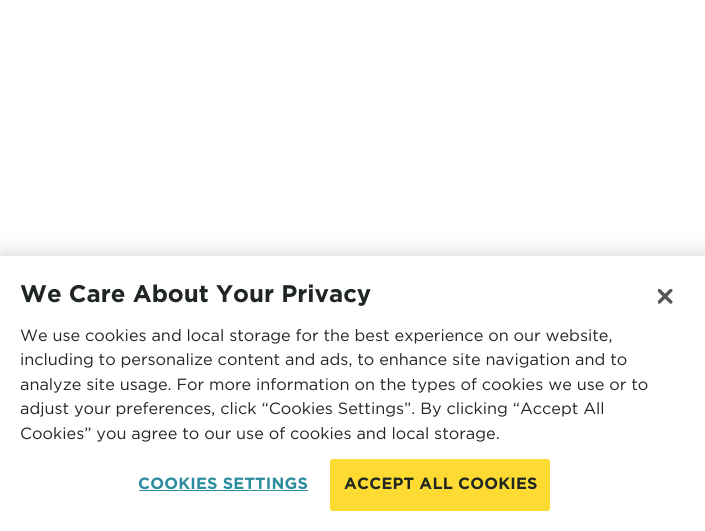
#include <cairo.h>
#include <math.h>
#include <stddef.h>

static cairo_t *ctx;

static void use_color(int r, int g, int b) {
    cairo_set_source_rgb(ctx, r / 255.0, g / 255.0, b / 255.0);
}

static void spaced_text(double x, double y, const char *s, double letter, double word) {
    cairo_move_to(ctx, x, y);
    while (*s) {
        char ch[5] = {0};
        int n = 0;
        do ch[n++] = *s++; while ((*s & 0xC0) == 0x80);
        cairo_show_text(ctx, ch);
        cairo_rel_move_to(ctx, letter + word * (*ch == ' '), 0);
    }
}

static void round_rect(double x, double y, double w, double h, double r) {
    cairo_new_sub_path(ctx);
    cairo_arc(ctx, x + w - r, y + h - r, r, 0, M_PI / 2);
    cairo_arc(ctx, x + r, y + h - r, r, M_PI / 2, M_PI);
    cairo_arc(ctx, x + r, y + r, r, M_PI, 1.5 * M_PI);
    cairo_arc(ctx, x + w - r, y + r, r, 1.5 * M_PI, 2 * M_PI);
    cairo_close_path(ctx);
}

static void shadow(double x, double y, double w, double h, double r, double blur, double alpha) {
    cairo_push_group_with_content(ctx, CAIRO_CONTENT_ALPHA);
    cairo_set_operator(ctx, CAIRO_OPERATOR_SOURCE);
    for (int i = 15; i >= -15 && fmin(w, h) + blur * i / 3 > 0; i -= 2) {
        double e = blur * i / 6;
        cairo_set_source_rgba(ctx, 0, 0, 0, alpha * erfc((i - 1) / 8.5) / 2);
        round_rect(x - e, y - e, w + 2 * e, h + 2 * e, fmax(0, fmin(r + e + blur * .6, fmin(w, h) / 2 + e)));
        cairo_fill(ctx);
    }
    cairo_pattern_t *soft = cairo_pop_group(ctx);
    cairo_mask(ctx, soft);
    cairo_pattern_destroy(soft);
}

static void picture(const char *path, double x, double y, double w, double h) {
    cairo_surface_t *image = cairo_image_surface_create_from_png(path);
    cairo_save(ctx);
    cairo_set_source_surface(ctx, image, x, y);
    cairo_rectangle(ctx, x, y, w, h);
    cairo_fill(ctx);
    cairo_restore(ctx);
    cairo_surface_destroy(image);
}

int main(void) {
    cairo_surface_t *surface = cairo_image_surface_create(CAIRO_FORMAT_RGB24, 705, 531);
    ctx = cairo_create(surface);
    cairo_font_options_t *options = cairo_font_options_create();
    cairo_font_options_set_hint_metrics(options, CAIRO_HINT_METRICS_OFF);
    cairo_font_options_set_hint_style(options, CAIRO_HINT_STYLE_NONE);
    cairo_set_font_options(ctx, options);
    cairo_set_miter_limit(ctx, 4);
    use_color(255, 255, 255);
    cairo_paint(ctx);
    use_color(0, 0, 0);
    shadow(0, 256, 705, 275, 0, 11, 0.2);
    use_color(255, 255, 255);
    cairo_rectangle(ctx, 0, 256, 705, 275);
    cairo_fill(ctx);
    cairo_select_font_face(ctx, "Gotham", CAIRO_FONT_SLANT_NORMAL, CAIRO_FONT_WEIGHT_BOLD);
    cairo_set_font_size(ctx, 24);
    use_color(32, 38, 33);
    cairo_move_to(ctx, 20, 302);
    cairo_show_text(ctx, "We Care About Your Privacy");
    cairo_select_font_face(ctx, "Gotham", CAIRO_FONT_SLANT_NORMAL, CAIRO_FONT_WEIGHT_NORMAL);
    cairo_set_font_size(ctx, 16.25);
    cairo_move_to(ctx, 20, 341);
    cairo_show_text(ctx, "We use cookies and local storage for the best experience on our website,");
    cairo_move_to(ctx, 20, 365);
    cairo_show_text(ctx, "including to personalize content and ads, to enhance site navigation and to");
    cairo_move_to(ctx, 20, 390);
    cairo_show_text(ctx, "analyze site usage. For more information on the types of cookies we use or to");
    cairo_move_to(ctx, 20, 414);
    cairo_show_text(ctx, "adjust your preferences, click “Cookies Settings”. By clicking “Accept All");
    cairo_move_to(ctx, 20, 439);
    cairo_show_text(ctx, "Cookies” you agree to our use of cookies and local storage.");
    cairo_select_font_face(ctx, "Gotham", CAIRO_FONT_SLANT_NORMAL, CAIRO_FONT_WEIGHT_BOLD);
    use_color(45, 140, 158);
    spaced_text(138, 489, "COOKIES SETTINGS", 0.2, 0);
    cairo_rectangle(ctx, 139, 490, 169, 1);
    cairo_fill(ctx);
    use_color(253, 219, 50);
    round_rect(330.5, 459.5, 219, 51, 2);
    cairo_fill_preserve(ctx);
    cairo_set_line_width(ctx, 1);
    cairo_stroke(ctx);
    use_color(32, 38, 33);
    spaced_text(344, 489, "ACCEPT ALL COOKIES", 0.2, 0);
    picture("img1.png", 658, 289, 15, 15);
    cairo_surface_write_to_png(surface, "result.png");
    cairo_font_options_destroy(options);
    cairo_destroy(ctx);
    cairo_surface_destroy(surface);
    return 0;
}
